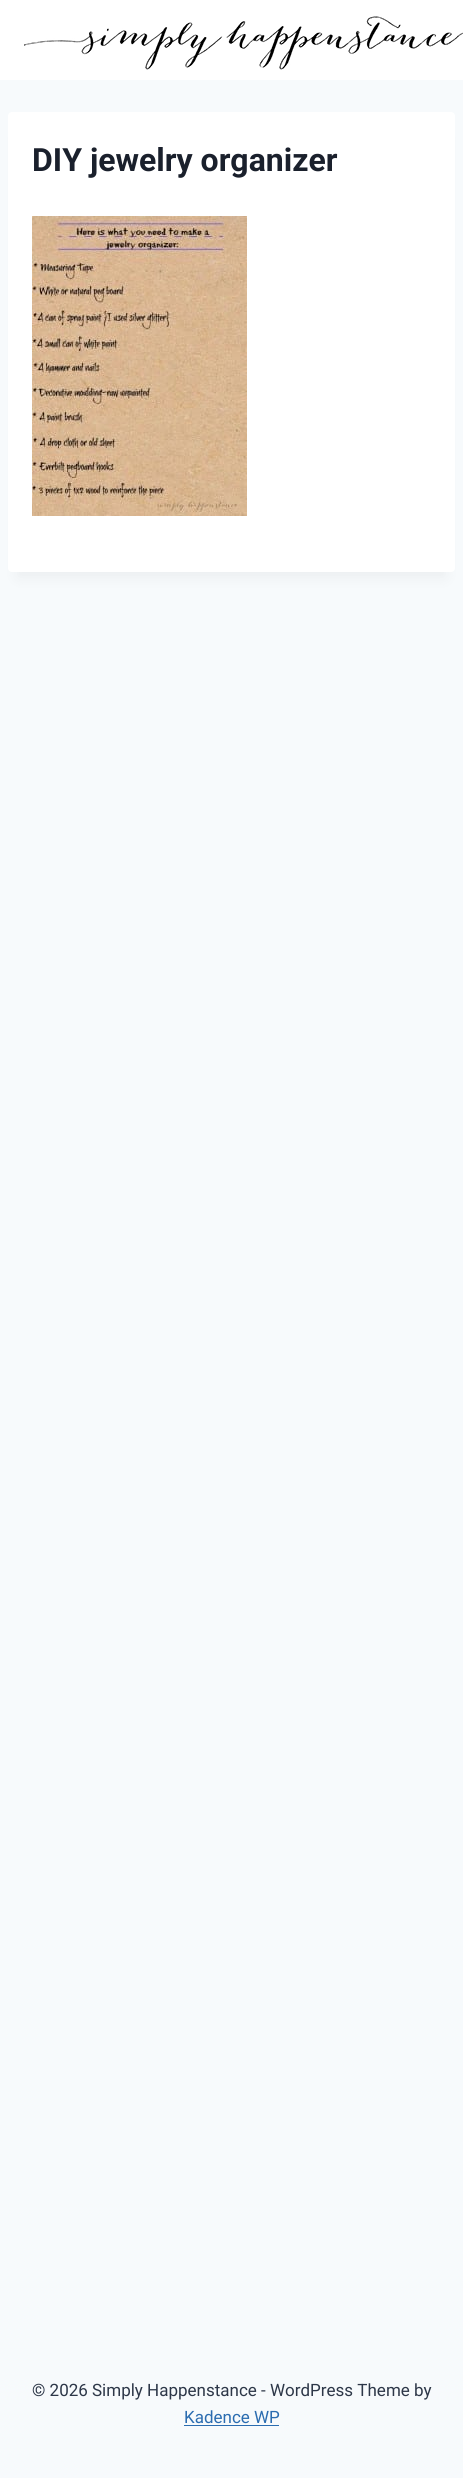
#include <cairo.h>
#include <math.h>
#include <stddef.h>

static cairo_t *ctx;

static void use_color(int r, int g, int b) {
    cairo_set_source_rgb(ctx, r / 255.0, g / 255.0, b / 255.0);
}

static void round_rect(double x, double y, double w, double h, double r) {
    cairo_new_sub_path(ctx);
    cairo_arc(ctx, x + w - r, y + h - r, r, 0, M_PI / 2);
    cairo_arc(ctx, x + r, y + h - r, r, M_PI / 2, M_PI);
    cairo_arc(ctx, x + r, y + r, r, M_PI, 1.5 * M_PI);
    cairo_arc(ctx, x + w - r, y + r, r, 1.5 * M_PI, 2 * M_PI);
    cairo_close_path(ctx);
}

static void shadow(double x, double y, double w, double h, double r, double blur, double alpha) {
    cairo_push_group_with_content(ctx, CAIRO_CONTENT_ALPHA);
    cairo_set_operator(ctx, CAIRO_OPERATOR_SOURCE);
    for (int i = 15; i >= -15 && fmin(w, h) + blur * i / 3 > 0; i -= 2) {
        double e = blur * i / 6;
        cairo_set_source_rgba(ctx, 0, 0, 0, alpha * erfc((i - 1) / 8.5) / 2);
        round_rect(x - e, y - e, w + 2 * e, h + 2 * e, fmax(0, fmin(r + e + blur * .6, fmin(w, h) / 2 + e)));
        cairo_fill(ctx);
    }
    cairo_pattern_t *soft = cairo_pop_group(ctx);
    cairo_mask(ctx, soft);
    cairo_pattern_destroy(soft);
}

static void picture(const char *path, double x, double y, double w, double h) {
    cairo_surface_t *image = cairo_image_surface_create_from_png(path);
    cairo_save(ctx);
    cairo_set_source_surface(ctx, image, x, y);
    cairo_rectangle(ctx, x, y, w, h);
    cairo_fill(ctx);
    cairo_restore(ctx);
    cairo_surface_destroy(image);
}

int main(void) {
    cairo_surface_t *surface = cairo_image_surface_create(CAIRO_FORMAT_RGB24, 463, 2478);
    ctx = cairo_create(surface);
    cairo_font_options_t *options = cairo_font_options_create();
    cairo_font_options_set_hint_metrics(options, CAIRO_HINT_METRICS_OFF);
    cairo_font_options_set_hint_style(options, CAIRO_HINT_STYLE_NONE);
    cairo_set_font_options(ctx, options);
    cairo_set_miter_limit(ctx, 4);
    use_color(247, 250, 252);
    cairo_paint(ctx);
    use_color(255, 255, 255);
    cairo_rectangle(ctx, 0, 0, 463, 80);
    cairo_fill(ctx);
    picture("img1.png", 24, 16, 439, 54);
    use_color(0, 0, 0);
    shadow(18, 137, 427, 440, 0, 7.5, 0.05);
    use_color(255, 255, 255);
    round_rect(8, 112, 447, 460, 4);
    cairo_fill(ctx);
    cairo_select_font_face(ctx, "Roboto", CAIRO_FONT_SLANT_NORMAL, CAIRO_FONT_WEIGHT_BOLD);
    cairo_set_font_size(ctx, 32);
    use_color(26, 32, 44);
    cairo_move_to(ctx, 32, 171);
    cairo_show_text(ctx, "DIY jewelry organizer");
    picture("img2.png", 32, 216, 215, 300);
    cairo_select_font_face(ctx, "Roboto", CAIRO_FONT_SLANT_NORMAL, CAIRO_FONT_WEIGHT_NORMAL);
    cairo_set_font_size(ctx, 17);
    use_color(45, 55, 72);
    cairo_move_to(ctx, 32, 2396);
    cairo_show_text(ctx, "© 2026 Simply Happenstance - WordPress Theme by");
    use_color(43, 108, 176);
    cairo_move_to(ctx, 184, 2423);
    cairo_show_text(ctx, "Kadence WP");
    cairo_rectangle(ctx, 184, 2425, 95, 1);
    cairo_fill(ctx);
    cairo_surface_write_to_png(surface, "result.png");
    cairo_font_options_destroy(options);
    cairo_destroy(ctx);
    cairo_surface_destroy(surface);
    return 0;
}
